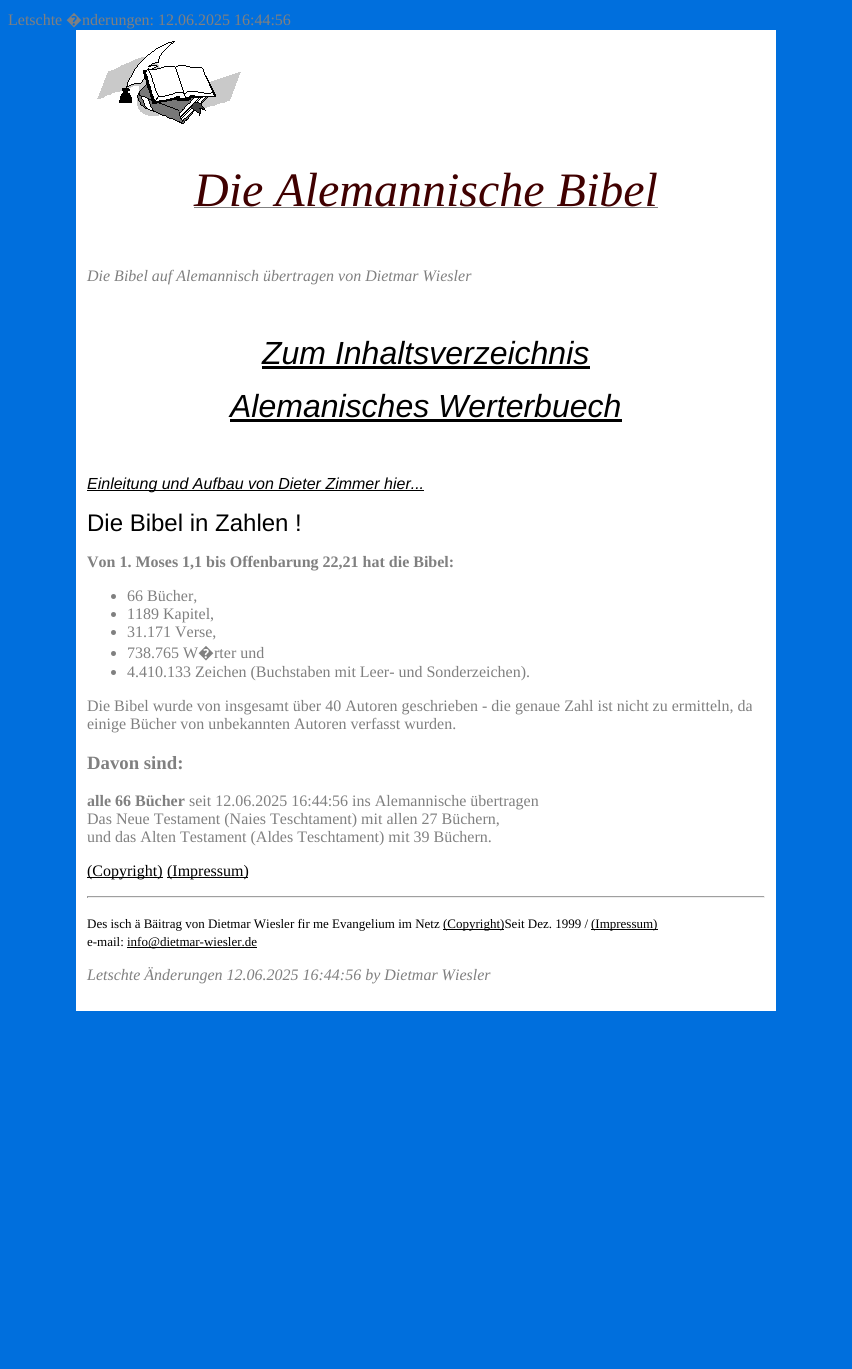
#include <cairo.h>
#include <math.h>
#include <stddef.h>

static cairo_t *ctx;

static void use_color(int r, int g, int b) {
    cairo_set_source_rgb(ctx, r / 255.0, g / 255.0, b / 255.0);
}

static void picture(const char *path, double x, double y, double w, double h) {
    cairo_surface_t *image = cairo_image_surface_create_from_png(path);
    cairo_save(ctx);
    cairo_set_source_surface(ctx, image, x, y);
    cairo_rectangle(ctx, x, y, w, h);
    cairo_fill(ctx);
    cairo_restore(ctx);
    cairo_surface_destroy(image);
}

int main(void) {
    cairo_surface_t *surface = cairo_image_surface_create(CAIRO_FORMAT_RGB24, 852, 1369);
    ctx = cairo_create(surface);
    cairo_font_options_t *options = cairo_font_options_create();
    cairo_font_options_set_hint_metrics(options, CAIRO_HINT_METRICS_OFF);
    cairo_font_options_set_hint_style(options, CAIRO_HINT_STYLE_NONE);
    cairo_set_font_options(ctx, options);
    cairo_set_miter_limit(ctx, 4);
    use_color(0, 111, 221);
    cairo_paint(ctx);
    cairo_select_font_face(ctx, "Liberation Serif", CAIRO_FONT_SLANT_NORMAL, CAIRO_FONT_WEIGHT_NORMAL);
    cairo_set_font_size(ctx, 16);
    use_color(128, 128, 128);
    cairo_move_to(ctx, 8, 25);
    cairo_show_text(ctx, "Letschte");
    cairo_select_font_face(ctx, "Noto Sans", CAIRO_FONT_SLANT_NORMAL, CAIRO_FONT_WEIGHT_NORMAL);
    cairo_move_to(ctx, 66, 25);
    cairo_show_text(ctx, "�");
    cairo_select_font_face(ctx, "Liberation Serif", CAIRO_FONT_SLANT_NORMAL, CAIRO_FONT_WEIGHT_NORMAL);
    cairo_move_to(ctx, 82, 25);
    cairo_show_text(ctx, "nderungen: 12.06.2025 16:44:56");
    use_color(255, 255, 255);
    cairo_rectangle(ctx, 76, 30, 700, 981);
    cairo_fill(ctx);
    picture("img1.png", 97, 41, 144, 83);
    cairo_select_font_face(ctx, "Liberation Serif", CAIRO_FONT_SLANT_ITALIC, CAIRO_FONT_WEIGHT_NORMAL);
    cairo_set_font_size(ctx, 48);
    use_color(64, 0, 0);
    cairo_move_to(ctx, 194, 206);
    cairo_show_text(ctx, "Die Alemannische Bibel");
    use_color(128, 128, 128);
    cairo_rectangle(ctx, 194, 207, 464, 1);
    cairo_fill(ctx);
    cairo_set_font_size(ctx, 16);
    cairo_move_to(ctx, 87, 281);
    cairo_show_text(ctx, "Die Bibel auf Alemannisch übertragen von Dietmar Wiesler");
    cairo_select_font_face(ctx, "Liberation Sans", CAIRO_FONT_SLANT_ITALIC, CAIRO_FONT_WEIGHT_NORMAL);
    cairo_set_font_size(ctx, 32);
    use_color(0, 0, 0);
    cairo_move_to(ctx, 262, 364);
    cairo_show_text(ctx, "Zum Inhaltsverzeichnis");
    cairo_rectangle(ctx, 262, 366, 328, 3);
    cairo_fill(ctx);
    cairo_move_to(ctx, 230, 417);
    cairo_show_text(ctx, "Alemanisches Werterbuech");
    cairo_rectangle(ctx, 230, 419, 392, 3);
    cairo_fill(ctx);
    cairo_rectangle(ctx, 87, 490, 337, 1);
    cairo_fill(ctx);
    cairo_set_font_size(ctx, 16);
    cairo_move_to(ctx, 87, 489);
    cairo_show_text(ctx, "Einleitung und Aufbau von Dieter Zimmer hier...");
    cairo_select_font_face(ctx, "Liberation Sans", CAIRO_FONT_SLANT_NORMAL, CAIRO_FONT_WEIGHT_NORMAL);
    cairo_set_font_size(ctx, 24);
    cairo_move_to(ctx, 87, 531);
    cairo_show_text(ctx, "Die Bibel in Zahlen !");
    cairo_select_font_face(ctx, "Liberation Serif", CAIRO_FONT_SLANT_NORMAL, CAIRO_FONT_WEIGHT_BOLD);
    cairo_set_font_size(ctx, 16);
    use_color(128, 128, 128);
    cairo_move_to(ctx, 87, 567);
    cairo_show_text(ctx, "Von 1. Moses 1,1 bis Offenbarung 22,21 hat die Bibel:");
    cairo_new_path(ctx);
    cairo_arc(ctx, 113.5, 596.5, 2.5, 0, 2 * M_PI);
    cairo_fill(ctx);
    cairo_select_font_face(ctx, "Liberation Serif", CAIRO_FONT_SLANT_NORMAL, CAIRO_FONT_WEIGHT_NORMAL);
    cairo_move_to(ctx, 127, 601);
    cairo_show_text(ctx, "66 Bücher,");
    cairo_new_path(ctx);
    cairo_arc(ctx, 113.5, 614.5, 2.5, 0, 2 * M_PI);
    cairo_fill(ctx);
    cairo_move_to(ctx, 127, 619);
    cairo_show_text(ctx, "1189 Kapitel,");
    cairo_new_path(ctx);
    cairo_arc(ctx, 113.5, 632.5, 2.5, 0, 2 * M_PI);
    cairo_fill(ctx);
    cairo_move_to(ctx, 127, 637);
    cairo_show_text(ctx, "31.171 Verse,");
    cairo_new_path(ctx);
    cairo_arc(ctx, 113.5, 653.5, 2.5, 0, 2 * M_PI);
    cairo_fill(ctx);
    cairo_move_to(ctx, 127, 658);
    cairo_show_text(ctx, "738.765 W");
    cairo_select_font_face(ctx, "Noto Sans", CAIRO_FONT_SLANT_NORMAL, CAIRO_FONT_WEIGHT_NORMAL);
    cairo_move_to(ctx, 198, 658);
    cairo_show_text(ctx, "�");
    cairo_select_font_face(ctx, "Liberation Serif", CAIRO_FONT_SLANT_NORMAL, CAIRO_FONT_WEIGHT_NORMAL);
    cairo_move_to(ctx, 214, 658);
    cairo_show_text(ctx, "rter und");
    cairo_new_path(ctx);
    cairo_arc(ctx, 113.5, 672.5, 2.5, 0, 2 * M_PI);
    cairo_fill(ctx);
    cairo_move_to(ctx, 127, 677);
    cairo_show_text(ctx, "4.410.133 Zeichen (Buchstaben mit Leer- und Sonderzeichen).");
    cairo_move_to(ctx, 87, 711);
    cairo_show_text(ctx, "Die Bibel wurde von insgesamt über 40 Autoren geschrieben - die genaue Zahl ist nicht zu ermitteln, da");
    cairo_move_to(ctx, 87, 729);
    cairo_show_text(ctx, "einige Bücher von unbekannten Autoren verfasst wurden.");
    cairo_select_font_face(ctx, "Liberation Serif", CAIRO_FONT_SLANT_NORMAL, CAIRO_FONT_WEIGHT_BOLD);
    cairo_set_font_size(ctx, 18.75);
    cairo_move_to(ctx, 87, 769);
    cairo_show_text(ctx, "Davon sind:");
    cairo_set_font_size(ctx, 16);
    cairo_move_to(ctx, 87, 806);
    cairo_show_text(ctx, "alle 66 Bücher");
    cairo_select_font_face(ctx, "Liberation Serif", CAIRO_FONT_SLANT_NORMAL, CAIRO_FONT_WEIGHT_NORMAL);
    cairo_move_to(ctx, 189, 806);
    cairo_show_text(ctx, "seit 12.06.2025 16:44:56 ins Alemannische übertragen");
    cairo_move_to(ctx, 87, 824);
    cairo_show_text(ctx, "Das Neue Testament (Naies Teschtament) mit allen 27 Büchern,");
    cairo_move_to(ctx, 87, 842);
    cairo_show_text(ctx, "und das Alten Testament (Aldes Teschtament) mit 39 Büchern.");
    use_color(0, 0, 0);
    cairo_rectangle(ctx, 87, 877, 76, 1);
    cairo_fill(ctx);
    cairo_move_to(ctx, 87, 876);
    cairo_show_text(ctx, "(Copyright)");
    cairo_rectangle(ctx, 167, 877, 81, 1);
    cairo_fill(ctx);
    cairo_move_to(ctx, 167, 876);
    cairo_show_text(ctx, "(Impressum)");
    use_color(159, 159, 159);
    cairo_rectangle(ctx, 87, 896, 678, 1);
    cairo_fill(ctx);
    use_color(238, 238, 238);
    cairo_rectangle(ctx, 764, 896, 1, 2);
    cairo_fill(ctx);
    cairo_rectangle(ctx, 87, 897, 678, 1);
    cairo_fill(ctx);
    use_color(159, 159, 159);
    cairo_rectangle(ctx, 87, 896, 1, 2);
    cairo_fill(ctx);
    cairo_set_font_size(ctx, 13);
    use_color(0, 0, 0);
    cairo_move_to(ctx, 87, 928);
    cairo_show_text(ctx, "Des isch ä Bäitrag von Dietmar Wiesler fir me Evangelium im Netz");
    cairo_rectangle(ctx, 443, 929, 61, 1);
    cairo_fill(ctx);
    cairo_move_to(ctx, 443, 928);
    cairo_show_text(ctx, "(Copyright)Seit Dez. 1999 /");
    cairo_rectangle(ctx, 591, 929, 67, 1);
    cairo_fill(ctx);
    cairo_move_to(ctx, 591, 928);
    cairo_show_text(ctx, "(Impressum)");
    cairo_move_to(ctx, 87, 946);
    cairo_show_text(ctx, "e-mail:");
    cairo_rectangle(ctx, 127, 947, 130, 1);
    cairo_fill(ctx);
    cairo_move_to(ctx, 127, 946);
    cairo_show_text(ctx, "info@dietmar-wiesler.de");
    cairo_select_font_face(ctx, "Liberation Serif", CAIRO_FONT_SLANT_ITALIC, CAIRO_FONT_WEIGHT_NORMAL);
    cairo_set_font_size(ctx, 16);
    use_color(128, 128, 128);
    cairo_move_to(ctx, 87, 980);
    cairo_show_text(ctx, "Letschte Änderungen 12.06.2025 16:44:56 by Dietmar Wiesler");
    cairo_surface_write_to_png(surface, "result.png");
    cairo_font_options_destroy(options);
    cairo_destroy(ctx);
    cairo_surface_destroy(surface);
    return 0;
}
